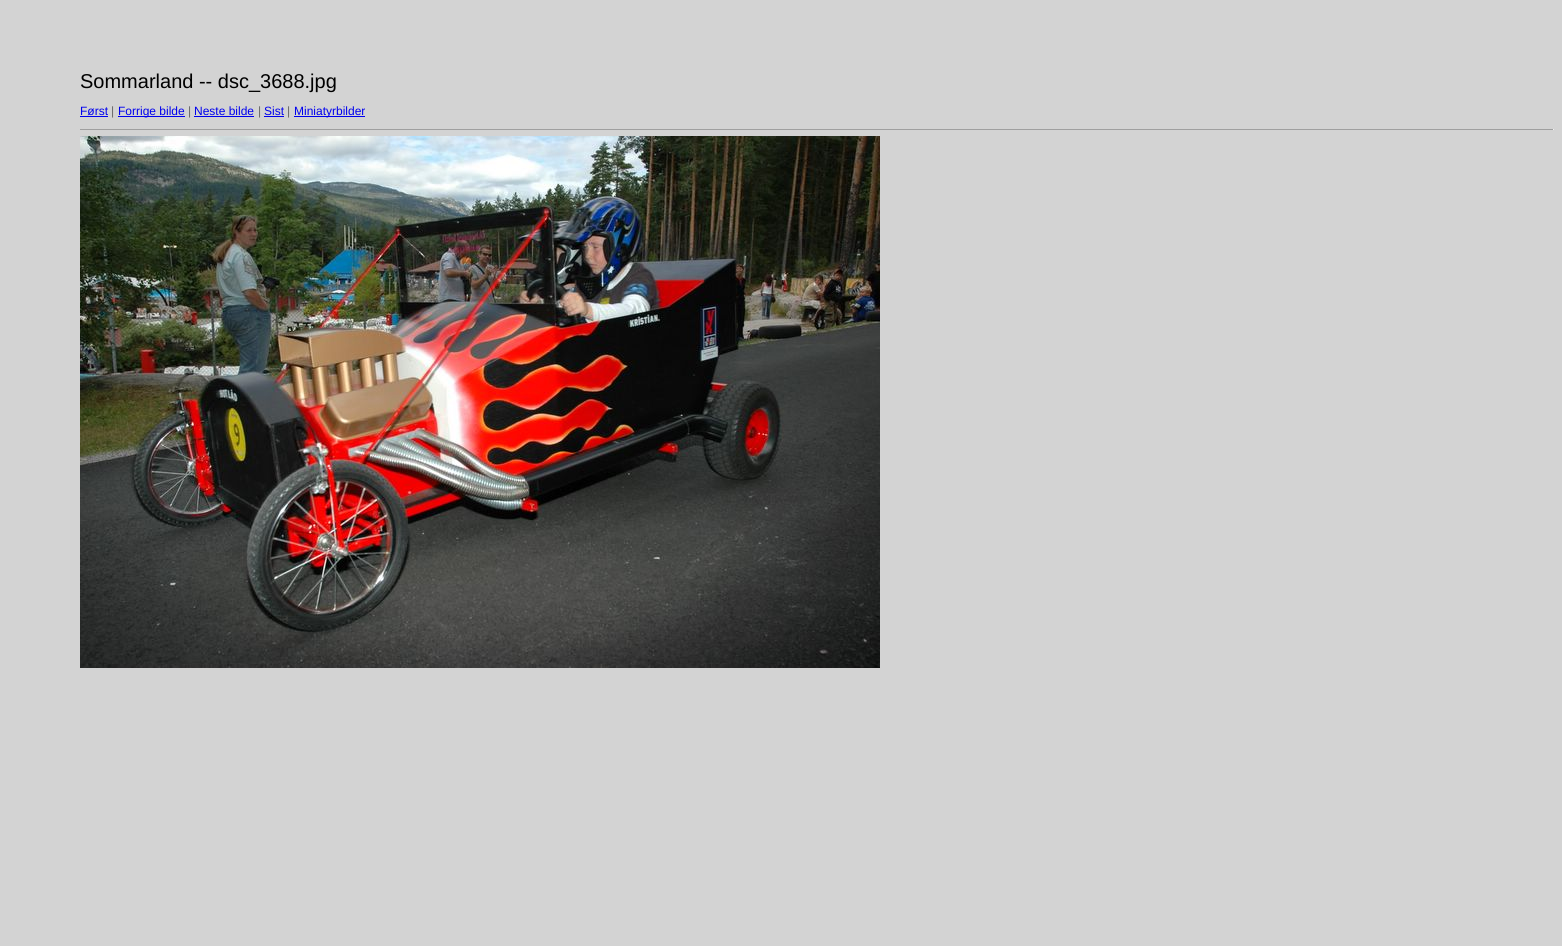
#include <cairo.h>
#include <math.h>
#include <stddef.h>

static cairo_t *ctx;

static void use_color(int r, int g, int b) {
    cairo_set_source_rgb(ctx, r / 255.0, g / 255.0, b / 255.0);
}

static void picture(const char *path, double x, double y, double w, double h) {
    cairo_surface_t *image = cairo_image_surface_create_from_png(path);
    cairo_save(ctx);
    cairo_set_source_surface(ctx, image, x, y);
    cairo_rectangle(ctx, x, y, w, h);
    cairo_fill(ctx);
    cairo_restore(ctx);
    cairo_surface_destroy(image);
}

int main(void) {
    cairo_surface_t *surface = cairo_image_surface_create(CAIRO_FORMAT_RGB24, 1562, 946);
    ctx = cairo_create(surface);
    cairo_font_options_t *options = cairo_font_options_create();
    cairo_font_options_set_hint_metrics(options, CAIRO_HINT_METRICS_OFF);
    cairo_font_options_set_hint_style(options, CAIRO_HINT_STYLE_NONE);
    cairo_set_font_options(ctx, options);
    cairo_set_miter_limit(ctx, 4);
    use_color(211, 211, 211);
    cairo_paint(ctx);
    cairo_select_font_face(ctx, "Liberation Sans", CAIRO_FONT_SLANT_NORMAL, CAIRO_FONT_WEIGHT_NORMAL);
    cairo_set_font_size(ctx, 20);
    use_color(0, 0, 0);
    cairo_move_to(ctx, 80, 88);
    cairo_show_text(ctx, "Sommarland -- dsc_3688.jpg");
    cairo_set_font_size(ctx, 12);
    use_color(0, 0, 238);
    cairo_move_to(ctx, 80, 115);
    cairo_show_text(ctx, "Først");
    cairo_rectangle(ctx, 80, 116, 28, 1);
    cairo_fill(ctx);
    use_color(102, 102, 102);
    cairo_move_to(ctx, 111, 115);
    cairo_show_text(ctx, "|");
    use_color(0, 0, 238);
    cairo_rectangle(ctx, 118, 116, 67, 1);
    cairo_fill(ctx);
    cairo_move_to(ctx, 118, 115);
    cairo_show_text(ctx, "Forrige bilde");
    use_color(102, 102, 102);
    cairo_move_to(ctx, 188, 115);
    cairo_show_text(ctx, "|");
    use_color(0, 0, 238);
    cairo_move_to(ctx, 194, 115);
    cairo_show_text(ctx, "Neste bilde");
    cairo_rectangle(ctx, 194, 116, 60, 1);
    cairo_fill(ctx);
    use_color(102, 102, 102);
    cairo_move_to(ctx, 258, 115);
    cairo_show_text(ctx, "|");
    use_color(0, 0, 238);
    cairo_move_to(ctx, 264, 115);
    cairo_show_text(ctx, "Sist");
    cairo_rectangle(ctx, 264, 116, 20, 1);
    cairo_fill(ctx);
    use_color(102, 102, 102);
    cairo_move_to(ctx, 287, 115);
    cairo_show_text(ctx, "|");
    use_color(0, 0, 238);
    cairo_rectangle(ctx, 294, 116, 71, 1);
    cairo_fill(ctx);
    cairo_move_to(ctx, 294, 115);
    cairo_show_text(ctx, "Miniatyrbilder");
    use_color(159, 159, 159);
    cairo_rectangle(ctx, 80, 129, 1474, 1);
    cairo_fill(ctx);
    use_color(238, 238, 238);
    cairo_rectangle(ctx, 1553, 129, 1, 1);
    cairo_fill(ctx);
    picture("img1.png", 80, 136, 800, 532);
    cairo_surface_write_to_png(surface, "result.png");
    cairo_font_options_destroy(options);
    cairo_destroy(ctx);
    cairo_surface_destroy(surface);
    return 0;
}
